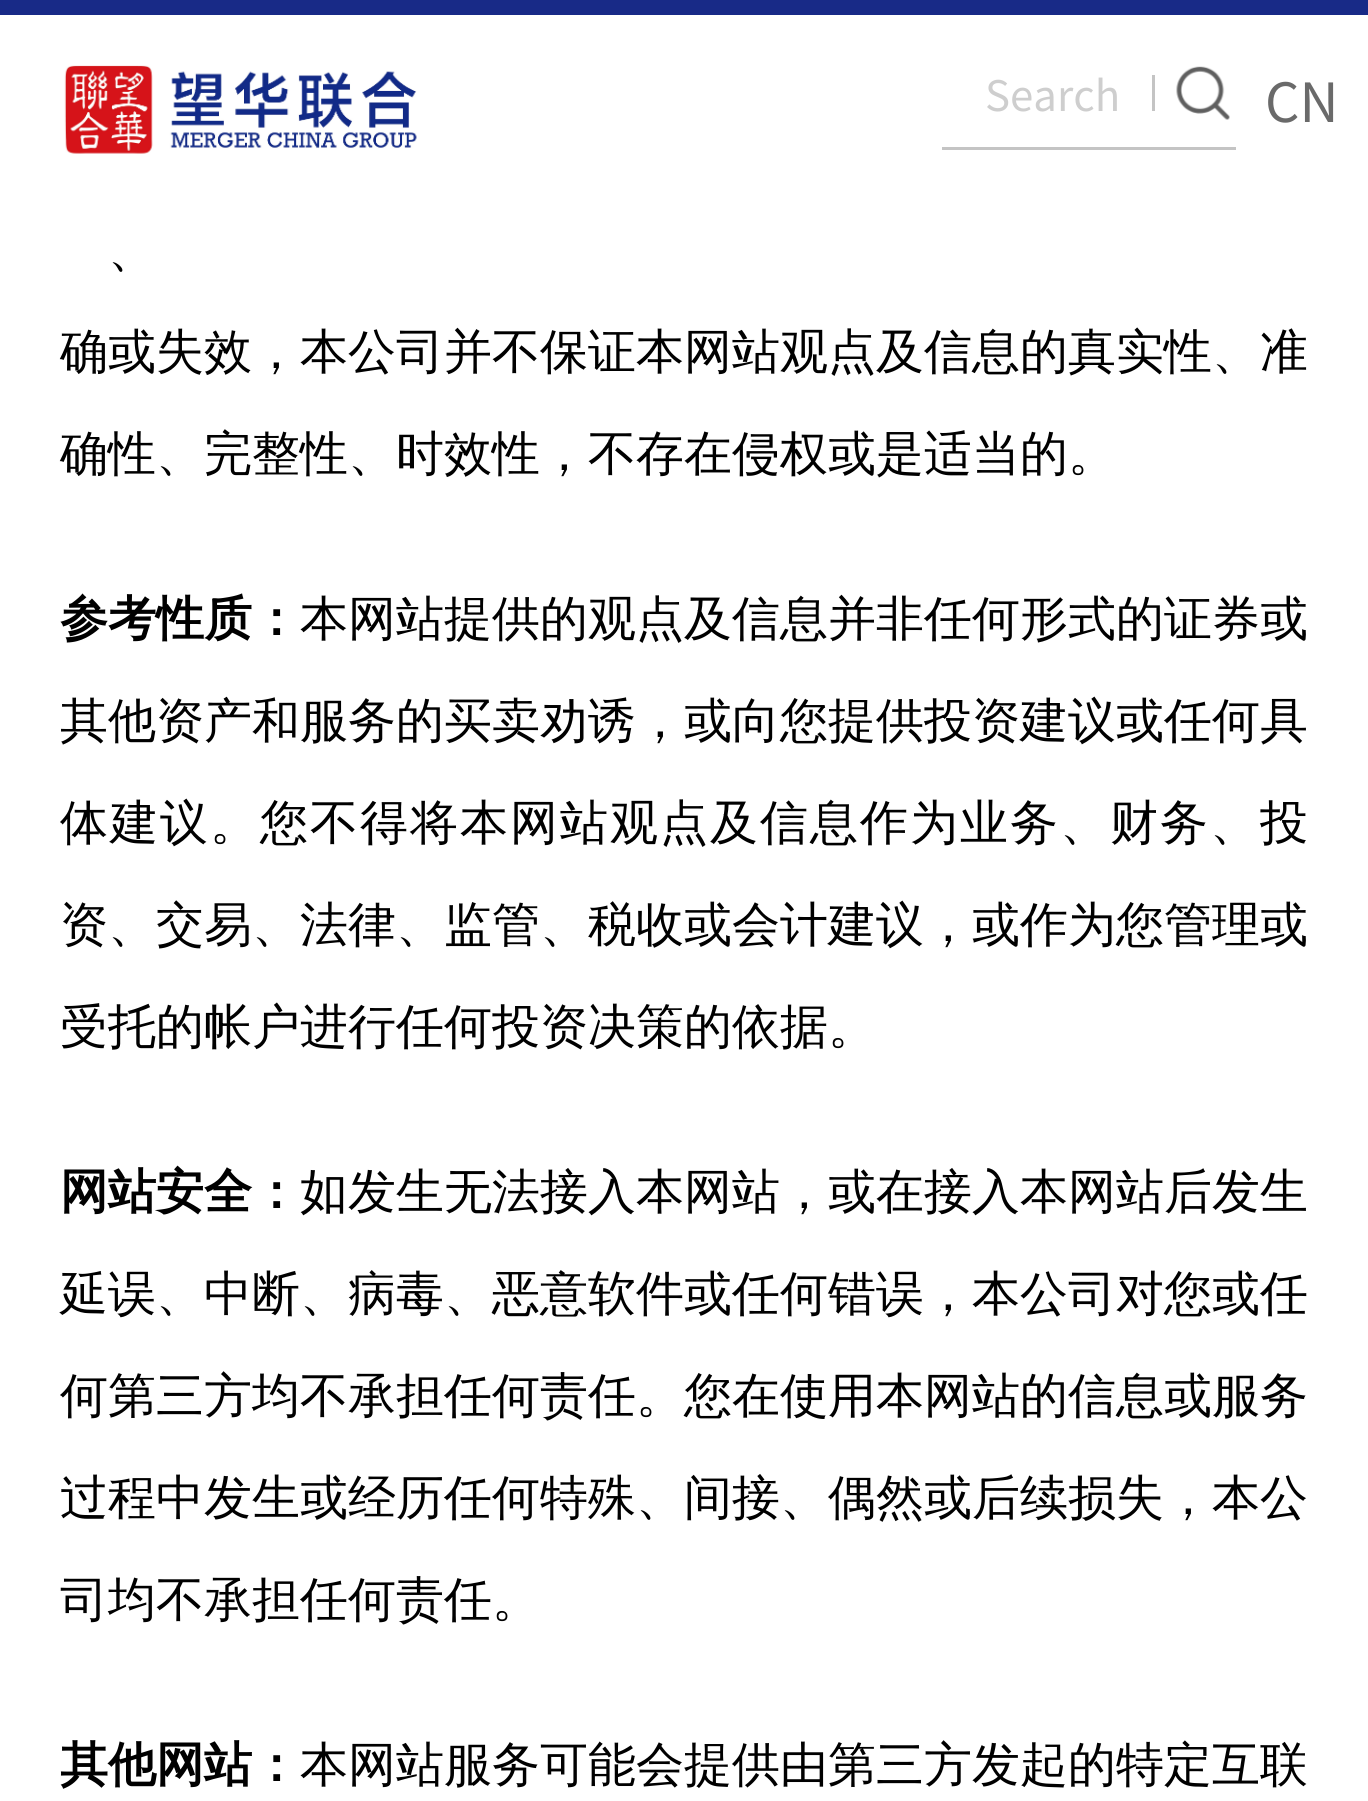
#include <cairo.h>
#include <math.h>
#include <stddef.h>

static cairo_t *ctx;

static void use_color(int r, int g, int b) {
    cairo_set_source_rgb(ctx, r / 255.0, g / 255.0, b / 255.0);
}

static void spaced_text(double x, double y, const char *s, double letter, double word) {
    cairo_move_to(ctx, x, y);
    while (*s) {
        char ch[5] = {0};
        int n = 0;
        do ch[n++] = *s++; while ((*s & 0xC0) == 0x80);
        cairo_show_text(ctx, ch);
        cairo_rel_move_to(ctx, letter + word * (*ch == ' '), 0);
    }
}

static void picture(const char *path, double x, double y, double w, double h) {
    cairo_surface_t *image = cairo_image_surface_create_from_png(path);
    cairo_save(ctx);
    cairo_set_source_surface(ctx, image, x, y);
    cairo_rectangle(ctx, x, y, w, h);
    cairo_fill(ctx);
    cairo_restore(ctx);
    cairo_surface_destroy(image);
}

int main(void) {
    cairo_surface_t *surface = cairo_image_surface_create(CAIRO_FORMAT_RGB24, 1368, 1801);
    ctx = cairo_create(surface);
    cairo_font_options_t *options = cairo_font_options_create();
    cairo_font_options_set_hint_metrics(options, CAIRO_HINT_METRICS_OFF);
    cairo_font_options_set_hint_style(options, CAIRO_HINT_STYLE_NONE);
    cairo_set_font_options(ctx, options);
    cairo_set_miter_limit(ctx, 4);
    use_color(255, 255, 255);
    cairo_paint(ctx);
    use_color(24, 42, 135);
    cairo_rectangle(ctx, 0, 0, 1368, 15);
    cairo_fill(ctx);
    picture("img1.png", 64, 65, 353, 89);
    use_color(196, 196, 196);
    cairo_rectangle(ctx, 942, 147, 294, 3);
    cairo_fill(ctx);
    cairo_select_font_face(ctx, "Noto Sans CJK SC", CAIRO_FONT_SLANT_NORMAL, CAIRO_FONT_WEIGHT_NORMAL);
    cairo_set_font_size(ctx, 42);
    use_color(206, 206, 206);
    cairo_move_to(ctx, 985, 111);
    cairo_show_text(ctx, "Search");
    use_color(196, 196, 196);
    cairo_rectangle(ctx, 1152, 75, 3, 36);
    cairo_fill(ctx);
    picture("img2.png", 1176, 66, 54, 54);
    cairo_set_font_size(ctx, 54);
    use_color(106, 106, 106);
    cairo_move_to(ctx, 1265, 122);
    cairo_show_text(ctx, "CN");
    cairo_select_font_face(ctx, "WenQuanYi Zen Hei Medium", CAIRO_FONT_SLANT_NORMAL, CAIRO_FONT_WEIGHT_NORMAL);
    cairo_set_font_size(ctx, 48);
    use_color(0, 0, 0);
    cairo_move_to(ctx, 108, 266);
    cairo_show_text(ctx, "、");
    cairo_move_to(ctx, 60, 368);
    cairo_show_text(ctx, "确或失效，本公司并不保证本网站观点及信息的真实性、准");
    cairo_move_to(ctx, 60, 470);
    cairo_show_text(ctx, "确性、完整性、时效性，不存在侵权或是适当的。");
    cairo_select_font_face(ctx, "WenQuanYi Zen Hei", CAIRO_FONT_SLANT_NORMAL, CAIRO_FONT_WEIGHT_BOLD);
    cairo_move_to(ctx, 60, 635);
    cairo_show_text(ctx, "参考性质：");
    cairo_select_font_face(ctx, "WenQuanYi Zen Hei Medium", CAIRO_FONT_SLANT_NORMAL, CAIRO_FONT_WEIGHT_NORMAL);
    cairo_move_to(ctx, 300, 635);
    cairo_show_text(ctx, "本网站提供的观点及信息并非任何形式的证券或");
    cairo_move_to(ctx, 60, 737);
    cairo_show_text(ctx, "其他资产和服务的买卖劝诱，或向您提供投资建议或任何具");
    spaced_text(60, 839, "体建议。您不得将本网站观点及信息作为业务、财务、投", 2, 0);
    cairo_move_to(ctx, 60, 941);
    cairo_show_text(ctx, "资、交易、法律、监管、税收或会计建议，或作为您管理或");
    cairo_move_to(ctx, 60, 1043);
    cairo_show_text(ctx, "受托的帐户进行任何投资决策的依据。");
    cairo_select_font_face(ctx, "WenQuanYi Zen Hei", CAIRO_FONT_SLANT_NORMAL, CAIRO_FONT_WEIGHT_BOLD);
    cairo_move_to(ctx, 60, 1208);
    cairo_show_text(ctx, "网站安全：");
    cairo_select_font_face(ctx, "WenQuanYi Zen Hei Medium", CAIRO_FONT_SLANT_NORMAL, CAIRO_FONT_WEIGHT_NORMAL);
    cairo_move_to(ctx, 300, 1208);
    cairo_show_text(ctx, "如发生无法接入本网站，或在接入本网站后发生");
    cairo_move_to(ctx, 60, 1310);
    cairo_show_text(ctx, "延误、中断、病毒、恶意软件或任何错误，本公司对您或任");
    cairo_move_to(ctx, 60, 1412);
    cairo_show_text(ctx, "何第三方均不承担任何责任。您在使用本网站的信息或服务");
    cairo_move_to(ctx, 60, 1514);
    cairo_show_text(ctx, "过程中发生或经历任何特殊、间接、偶然或后续损失，本公");
    cairo_move_to(ctx, 60, 1616);
    cairo_show_text(ctx, "司均不承担任何责任。");
    cairo_select_font_face(ctx, "WenQuanYi Zen Hei", CAIRO_FONT_SLANT_NORMAL, CAIRO_FONT_WEIGHT_BOLD);
    cairo_move_to(ctx, 60, 1781);
    cairo_show_text(ctx, "其他网站：");
    cairo_select_font_face(ctx, "WenQuanYi Zen Hei Medium", CAIRO_FONT_SLANT_NORMAL, CAIRO_FONT_WEIGHT_NORMAL);
    cairo_move_to(ctx, 300, 1781);
    cairo_show_text(ctx, "本网站服务可能会提供由第三方发起的特定互联");
    cairo_surface_write_to_png(surface, "result.png");
    cairo_font_options_destroy(options);
    cairo_destroy(ctx);
    cairo_surface_destroy(surface);
    return 0;
}
